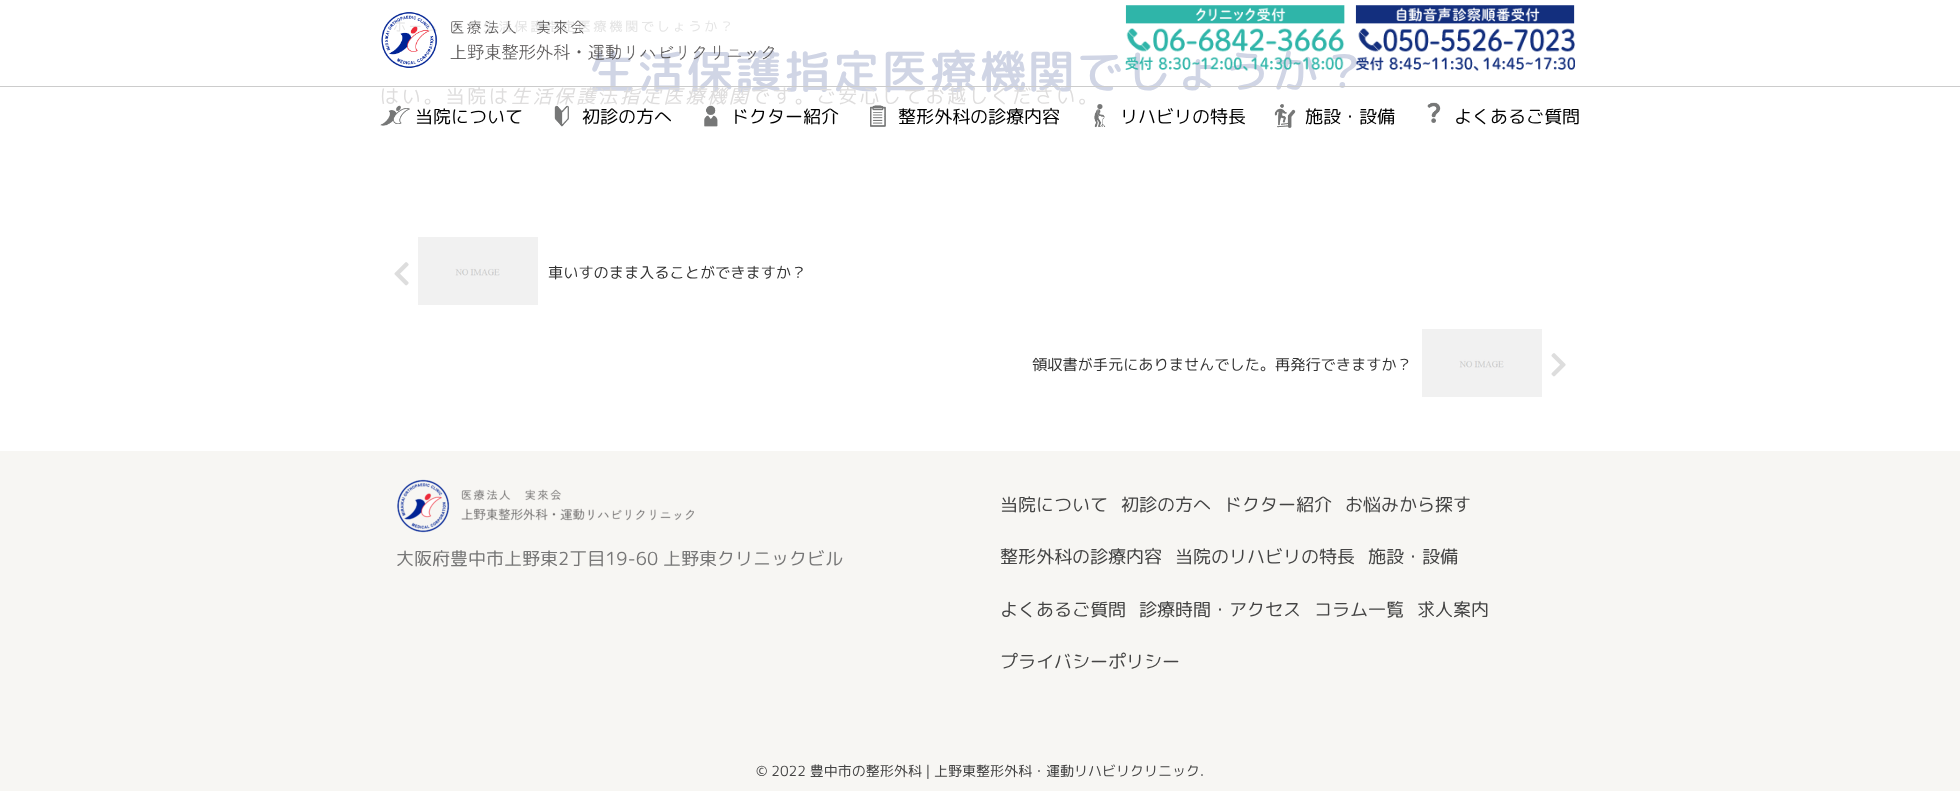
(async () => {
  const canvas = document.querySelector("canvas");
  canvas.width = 1960;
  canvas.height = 791;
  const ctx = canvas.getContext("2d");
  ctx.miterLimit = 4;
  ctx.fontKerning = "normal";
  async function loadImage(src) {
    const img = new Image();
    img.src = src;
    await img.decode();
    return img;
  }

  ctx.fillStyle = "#ffffff";
  ctx.fillRect(0, 0, 1960, 791);
  ctx.drawImage(await loadImage("img/1.png"), 454, 22, 6, 9);
  ctx.drawImage(await loadImage("img/5.png"), 380, 105, 30, 21);
  ctx.drawImage(await loadImage("img/6.png"), 554, 105, 15, 22);
  ctx.drawImage(await loadImage("img/7.png"), 704, 105, 14, 22);
  ctx.drawImage(await loadImage("img/8.png"), 870, 105, 16, 22);
  ctx.drawImage(await loadImage("img/9.png"), 1094, 104, 12, 24);
  ctx.drawImage(await loadImage("img/10.png"), 1274, 104, 22, 24);
  ctx.drawImage(await loadImage("img/11.png"), 1427, 102, 14, 21);
  ctx.drawImage(await loadImage("img/12.png"), 394, 262, 15, 24);
  ctx.drawImage(await loadImage("img/13.png"), 418, 237, 120, 68);
  ctx.drawImage(await loadImage("img/13.png"), 1422, 329, 120, 68);
  ctx.drawImage(await loadImage("img/14.png"), 1551, 353, 15, 24);
  ctx.fillStyle = "#f7f6f3";
  ctx.fillRect(0, 451, 1960, 340);
  ctx.drawImage(await loadImage("img/15.png"), 397, 479, 297, 54);
  ctx.letterSpacing = "2.8px";
  ctx.font = "13px 'M PLUS 1p'";
  ctx.fillStyle = "#e4e4e4";
  ctx.fillText("ホーム", 393, 31);
  ctx.fillText("生活保護指定医療機関でしょうか？", 483, 31);
  ctx.font = "500 46px 'Rounded Mplus 1c'";
  ctx.fillStyle = "#d0d5e5";
  ctx.fillText("生活保護指定医療機関でしょうか？", 589, 88);
  ctx.font = "19px 'M PLUS 1p'";
  ctx.fillStyle = "#dedddd";
  ctx.fillText("はい。当院は", 380, 103);
  ctx.font = "italic 19px 'M PLUS 1p'";
  ctx.fillText("生活保護", 511, 103);
  ctx.font = "19px 'M PLUS 1p'";
  ctx.fillText("法", 599, 103);
  ctx.font = "italic 19px 'M PLUS 1p'";
  ctx.fillText("指定医療機関", 620, 103);
  ctx.font = "19px 'M PLUS 1p'";
  ctx.fillText("です。ご安心してお越しください。", 751, 103);
  ctx.drawImage(await loadImage("img/2.png"), 381, 12, 393, 56);
  ctx.drawImage(await loadImage("img/3.png"), 1125, 5, 220, 66);
  ctx.drawImage(await loadImage("img/4.png"), 1355, 5, 220, 66);
  ctx.fillStyle = "#cccccc";
  ctx.fillRect(0, 86, 1960, 1);
  ctx.letterSpacing = "0px";
  ctx.font = "18px 'Rounded Mplus 1c'";
  ctx.fillStyle = "#000000";
  for (const [text, x, y] of [
    ["当院について", 415, 123],
    ["初診の方へ", 582, 123],
    ["ドクター紹介", 731, 123],
    ["整形外科の診療内容", 898, 123],
    ["リハビリの特長", 1120, 123],
    ["施設・設備", 1305, 123],
    ["よくあるご質問", 1454, 123],
  ]) {
    ctx.fillText(text, x, y);
  }
  ctx.font = "15.2px 'Rounded Mplus 1c'";
  ctx.fillStyle = "#333333";
  ctx.fillText("車いすのまま入ることができますか？", 548, 278);
  ctx.fillText("領収書が手元にありませんでした。再発行できますか？", 1032, 370);
  ctx.font = "18px 'Rounded Mplus 1c'";
  ctx.fillStyle = "#777777";
  ctx.fillText("大阪府豊中市上野東2丁目19-60 上野東クリニックビル", 396, 565);
  ctx.fillStyle = "#444444";
  for (const [text, x, y] of [
    ["当院について", 1000, 511],
    ["初診の方へ", 1121, 511],
    ["ドクター紹介", 1224, 511],
    ["お悩みから探す", 1345, 511],
    ["整形外科の診療内容", 1000, 563],
    ["当院のリハビリの特長", 1175, 563],
    ["施設・設備", 1368, 563],
    ["よくあるご質問", 1000, 616],
    ["診療時間・アクセス", 1139, 616],
    ["コラム一覧", 1314, 616],
    ["求人案内", 1417, 616],
    ["プライバシーポリシー", 1000, 668],
  ]) {
    ctx.fillText(text, x, y);
  }
  ctx.font = "14px 'Rounded Mplus 1c'";
  ctx.fillText("© 2022 豊中市の整形外科 | 上野東整形外科・運動リハビリクリニック.", 756, 776);
})();
